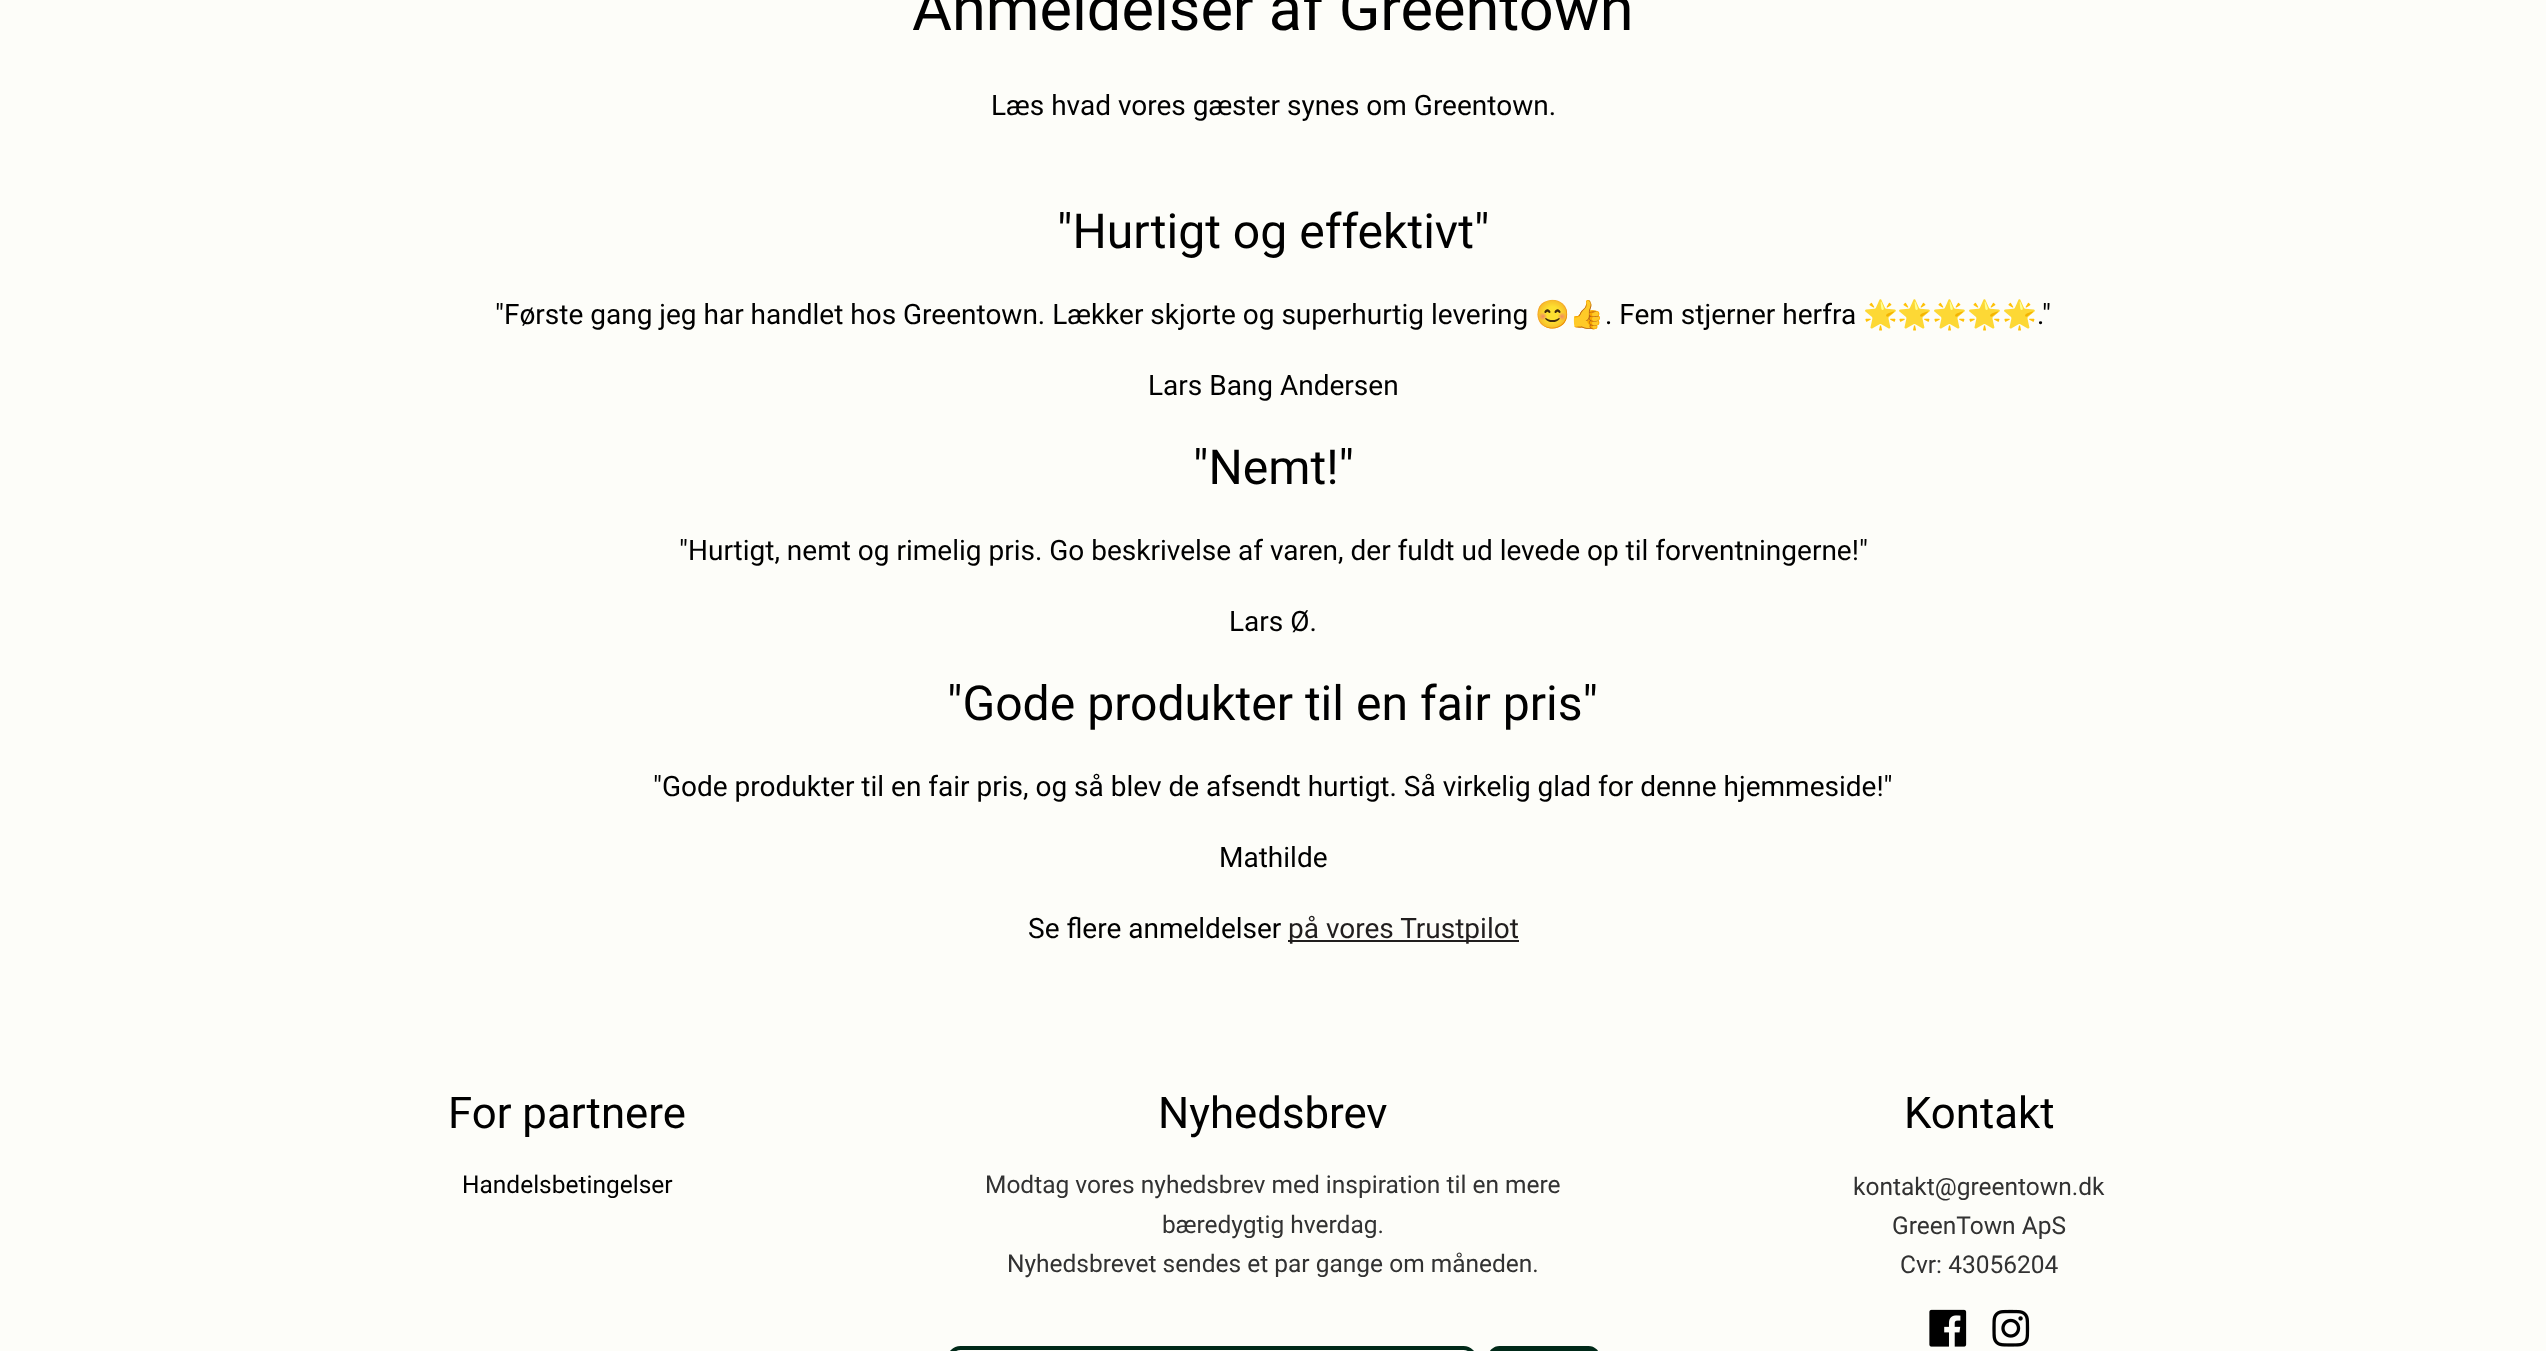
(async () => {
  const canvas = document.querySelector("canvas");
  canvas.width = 2546;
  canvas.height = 1351;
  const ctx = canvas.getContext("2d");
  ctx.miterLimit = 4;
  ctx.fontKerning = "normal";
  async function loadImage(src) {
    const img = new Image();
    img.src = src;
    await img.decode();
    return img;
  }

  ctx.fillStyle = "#fdfdf9";
  ctx.fillRect(0, 0, 2546, 1351);
  ctx.fillStyle = "#211e1e";
  ctx.fillRect(1288, 940, 231, 2);
  ctx.beginPath();
  ctx.roundRect(949, 1348, 526, 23, 16);
  ctx.strokeStyle = "#002918";
  ctx.lineWidth = 4;
  ctx.stroke();
  ctx.fillStyle = "#002918";
  ctx.beginPath();
  ctx.roundRect(1488, 1346, 112, 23, 18);
  ctx.fill();
  ctx.drawImage(await loadImage("img/1.png"), 1929, 1309, 38, 38);
  ctx.drawImage(await loadImage("img/2.png"), 1992, 1309, 38, 38);
  ctx.font = "61.25px Roboto";
  ctx.fillStyle = "#000000";
  ctx.fillText("Anmeldelser af Greentown", 912, 30);
  ctx.font = "28px Roboto";
  ctx.fillText("Læs hvad vores gæster synes om Greentown.", 991, 115);
  ctx.font = "48.1px Roboto";
  ctx.fillText("\"Hurtigt og effektivt\"", 1057, 248);
  ctx.font = "28px Roboto";
  ctx.fillText("\"Første gang jeg har handlet hos Greentown. Lækker skjorte og superhurtig levering", 495, 324);
  ctx.font = "28px Noto Color Emoji";
  ctx.fillText("😊👍", 1535, 324);
  ctx.font = "28px Roboto";
  ctx.fillText(". Fem stjerner herfra", 1605, 324);
  ctx.font = "28px Noto Color Emoji";
  ctx.fillText("🌟🌟🌟🌟🌟", 1863, 324);
  ctx.font = "28px Roboto";
  ctx.fillText(".\"", 2037, 324);
  ctx.fillText("Lars Bang Andersen", 1148, 395);
  ctx.font = "48.1px Roboto";
  ctx.fillText("\"Nemt!\"", 1193, 484);
  ctx.font = "28px Roboto";
  ctx.fillText("\"Hurtigt, nemt og rimelig pris. Go beskrivelse af varen, der fuldt ud levede op til forventningerne!\"", 679, 560);
  ctx.fillText("Lars Ø.", 1229, 631);
  ctx.font = "48.1px Roboto";
  ctx.fillText("\"Gode produkter til en fair pris\"", 947, 720);
  ctx.font = "28px Roboto";
  for (const [text, x, y] of [
    ["\"Gode produkter til en fair pris, og så blev de afsendt hurtigt. Så virkelig glad for denne hjemmeside!\"", 653, 796],
    ["Mathilde", 1219, 867],
    ["Se flere anmeldelser", 1028, 938],
  ]) {
    ctx.fillText(text, x, y);
  }
  ctx.fillStyle = "#211e1e";
  ctx.fillText("på vores Trustpilot", 1288, 938);
  ctx.font = "43.75px Roboto";
  ctx.fillStyle = "#000000";
  ctx.fillText("For partnere", 448, 1128);
  ctx.font = "24.5px Roboto";
  ctx.fillText("Handelsbetingelser", 462, 1193);
  ctx.font = "43.75px Roboto";
  ctx.fillText("Nyhedsbrev", 1158, 1128);
  ctx.font = "24.5px Roboto";
  ctx.fillStyle = "#323232";
  for (const [text, x, y] of [
    ["Modtag vores nyhedsbrev med inspiration til en mere", 985, 1193],
    ["bæredygtig hverdag.", 1162, 1233],
    ["Nyhedsbrevet sendes et par gange om måneden.", 1007, 1272],
  ]) {
    ctx.fillText(text, x, y);
  }
  ctx.font = "43.75px Roboto";
  ctx.fillStyle = "#000000";
  ctx.fillText("Kontakt", 1904, 1128);
  ctx.font = "24.5px Roboto";
  ctx.fillStyle = "#323232";
  for (const [text, x, y] of [
    ["kontakt@greentown.dk", 1853, 1195],
    ["GreenTown ApS", 1892, 1234],
    ["Cvr: 43056204", 1900, 1273],
  ]) {
    ctx.fillText(text, x, y);
  }
})();
